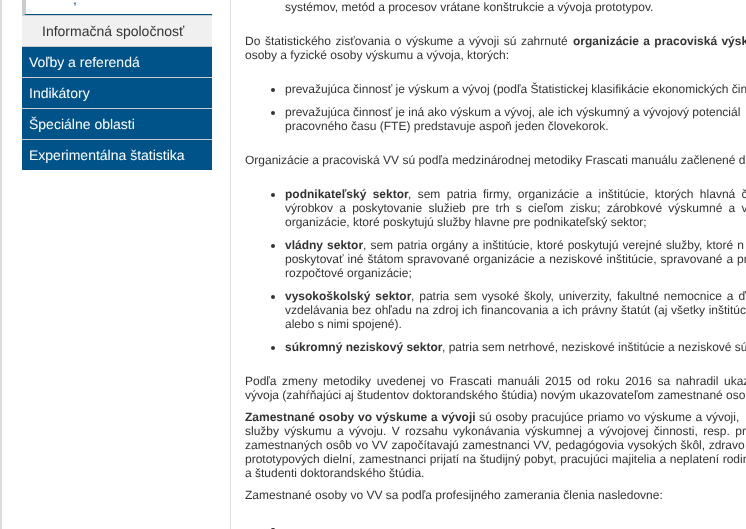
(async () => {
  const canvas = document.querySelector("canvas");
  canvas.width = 746;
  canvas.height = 529;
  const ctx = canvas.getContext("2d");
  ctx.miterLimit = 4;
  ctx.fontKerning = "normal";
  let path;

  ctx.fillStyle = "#ffffff";
  ctx.fillRect(0, 0, 746, 529);
  ctx.fillStyle = "#dadbdc";
  ctx.fillRect(0, 0, 2, 529);
  ctx.fillStyle = "#005388";
  path = new Path2D("M212 15H22L26 14H212Z");
  ctx.fill(path);
  ctx.fillStyle = "#cccccc";
  path = new Path2D("M22 15V-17L26-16V14Z");
  ctx.fill(path);
  for (const [x, y, w, h, color] of [
    [22, 15, 190, 1, "#cccccc"],
    [22, 16, 190, 30, "#f0f0f0"],
    [22, 46, 190, 1, "#cccccc"],
    [22, 47, 190, 30, "#005388"],
    [22, 77, 190, 1, "#cccccc"],
    [22, 78, 190, 30, "#005388"],
    [22, 108, 190, 1, "#cccccc"],
    [22, 109, 190, 30, "#005388"],
    [22, 139, 190, 1, "#cccccc"],
    [22, 140, 190, 30, "#005388"],
  ]) {
    ctx.fillStyle = color;
    ctx.fillRect(x, y, w, h);
  }
  ctx.strokeStyle = "#dfdfdf";
  ctx.strokeRect(230.5, -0.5, 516, 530);
  ctx.fillStyle = "#333333";
  ctx.beginPath();
  ctx.arc(273, 90, 2, 0, Math.PI * 2);
  ctx.fill();
  ctx.beginPath();
  ctx.arc(273, 113, 2, 0, Math.PI * 2);
  ctx.fill();
  ctx.beginPath();
  ctx.arc(273, 195, 2, 0, Math.PI * 2);
  ctx.fill();
  ctx.beginPath();
  ctx.arc(273, 246, 2, 0, Math.PI * 2);
  ctx.fill();
  ctx.beginPath();
  ctx.arc(273, 297, 2, 0, Math.PI * 2);
  ctx.fill();
  ctx.beginPath();
  ctx.arc(273, 348, 2, 0, Math.PI * 2);
  ctx.fill();
  ctx.beginPath();
  ctx.roundRect(271, 528, 4, 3, 2);
  ctx.fill();
  ctx.font = "14px Liberation Sans";
  ctx.fillStyle = "#064685";
  ctx.fillText(",", 73, 4);
  ctx.fillStyle = "#333333";
  ctx.fillText("Informačná spoločnosť", 42, 36);
  ctx.fillStyle = "#ffffff";
  for (const [text, x, y] of [
    ["Voľby a referendá", 29, 67],
    ["Indikátory", 29, 98],
    ["Špeciálne oblasti", 29, 129],
    ["Experimentálna štatistika", 29, 160],
  ]) {
    ctx.fillText(text, x, y);
  }
  ctx.font = "12px Liberation Sans";
  ctx.fillStyle = "#333333";
  ctx.fillText("systémov, metód a procesov vrátane konštrukcie a vývoja prototypov.", 285, 11);
  ctx.wordSpacing = "1.25px";
  ctx.fillText("Do štatistického zisťovania o výskume a vývoji sú zahrnuté", 245, 45);
  ctx.wordSpacing = "1px";
  ctx.font = "bold 12px Liberation Sans";
  ctx.fillText("organizácie a pracoviská výsk", 573, 45);
  ctx.wordSpacing = "0px";
  ctx.font = "12px Liberation Sans";
  for (const [text, x, y] of [
    ["osoby a fyzické osoby výskumu a vývoja, ktorých:", 245, 59],
    ["prevažujúca činnosť je výskum a vývoj (podľa Štatistickej klasifikácie ekonomických čin", 285, 93],
    ["prevažujúca činnosť je iná ako výskum a vývoj, ale ich výskumný a vývojový potenciál", 285, 116],
    ["pracovného času (FTE) predstavuje aspoň jeden človekorok.", 285, 130],
    ["Organizácie a pracoviská VV sú podľa medzinárodnej metodiky Frascati manuálu začlenené d", 245, 164],
  ]) {
    ctx.fillText(text, x, y);
  }
  ctx.wordSpacing = "3px";
  ctx.font = "bold 12px Liberation Sans";
  ctx.fillText("podnikateľský sektor", 285, 198);
  ctx.font = "12px Liberation Sans";
  ctx.fillText(", sem patria firmy, organizácie a inštitúcie, ktorých hlavná č", 408, 198);
  ctx.wordSpacing = "2.9px";
  ctx.fillText("výrobkov a poskytovanie služieb pre trh s cieľom zisku; zárobkové výskumné a v", 285, 212);
  ctx.wordSpacing = "0px";
  ctx.fillText("organizácie, ktoré poskytujú služby hlavne pre podnikateľský sektor;", 285, 226);
  ctx.wordSpacing = "0.75px";
  ctx.font = "bold 12px Liberation Sans";
  ctx.fillText("vládny sektor", 285, 249);
  ctx.font = "12px Liberation Sans";
  ctx.fillText(", sem patria orgány a inštitúcie, ktoré poskytujú verejné služby, ktoré n", 363, 249);
  ctx.wordSpacing = "0.6px";
  ctx.fillText("poskytovať iné štátom spravované organizácie a neziskové inštitúcie, spravované a pr", 285, 263);
  ctx.wordSpacing = "0px";
  ctx.fillText("rozpočtové organizácie;", 285, 277);
  ctx.wordSpacing = "1.6px";
  ctx.font = "bold 12px Liberation Sans";
  ctx.fillText("vysokoškolský sektor", 285, 300);
  ctx.font = "12px Liberation Sans";
  ctx.fillText(", patria sem vysoké školy, univerzity, fakultné nemocnice a ď", 411, 300);
  ctx.wordSpacing = "0.3px";
  ctx.fillText("vzdelávania bez ohľadu na zdroj ich financovania a ich právny štatút (aj všetky inštitúc", 285, 314);
  ctx.wordSpacing = "0px";
  ctx.fillText("alebo s nimi spojené).", 285, 328);
  ctx.font = "bold 12px Liberation Sans";
  ctx.fillText("súkromný neziskový sektor", 285, 351);
  ctx.font = "12px Liberation Sans";
  ctx.fillText(", patria sem netrhové, neziskové inštitúcie a neziskové sú", 442, 351);
  ctx.wordSpacing = "2.25px";
  ctx.fillText("Podľa zmeny metodiky uvedenej vo Frascati manuáli 2015 od roku 2016 sa nahradil ukaz", 245, 385);
  ctx.wordSpacing = "0px";
  ctx.fillText("vývoja (zahŕňajúci aj študentov doktorandského štúdia) novým ukazovateľom zamestnané oso", 245, 399);
  ctx.wordSpacing = "0.5px";
  ctx.font = "bold 12px Liberation Sans";
  ctx.fillText("Zamestnané osoby vo výskume a vývoji", 245, 421);
  ctx.font = "12px Liberation Sans";
  ctx.fillText("sú osoby pracujúce priamo vo výskume a vývoji,", 479, 421);
  ctx.wordSpacing = "2px";
  ctx.fillText("služby výskumu a vývoju. V rozsahu vykonávania výskumnej a vývojovej činnosti, resp. pr", 245, 435);
  ctx.wordSpacing = "0.25px";
  ctx.fillText("zamestnaných osôb vo VV započítavajú zamestnanci VV, pedagógovia vysokých škôl, zdravo", 245, 449);
  ctx.fillText("prototypových dielní, zamestnanci prijatí na študijný pobyt, pracujúci majitelia a neplatení rodin", 245, 463);
  ctx.wordSpacing = "0px";
  ctx.fillText("a študenti doktorandského štúdia.", 245, 477);
  ctx.fillText("Zamestnané osoby vo VV sa podľa profesijného zamerania členia nasledovne:", 245, 499);
})();
